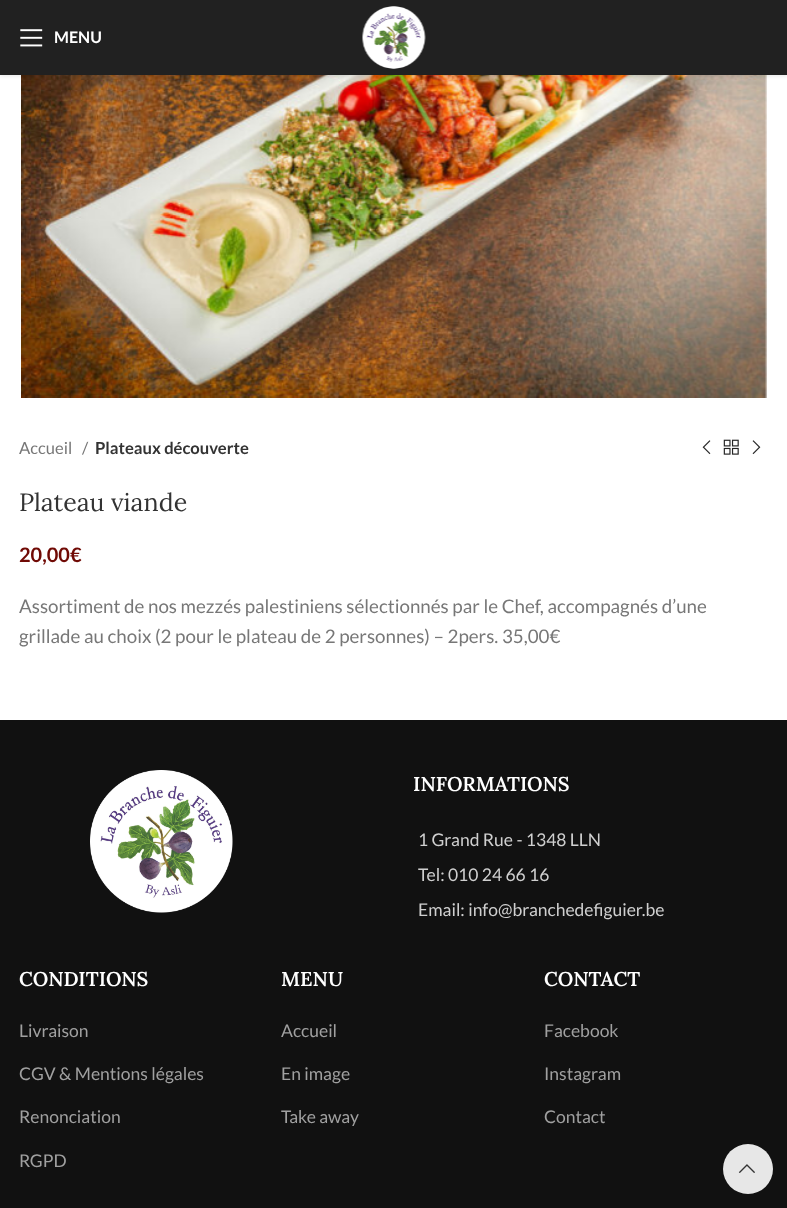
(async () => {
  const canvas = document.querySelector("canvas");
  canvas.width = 787;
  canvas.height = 1208;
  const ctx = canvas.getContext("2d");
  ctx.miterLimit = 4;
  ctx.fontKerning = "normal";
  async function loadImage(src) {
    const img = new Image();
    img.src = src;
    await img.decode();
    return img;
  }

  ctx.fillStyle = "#ffffff";
  ctx.fillRect(0, 0, 787, 1208);
  ctx.drawImage(await loadImage("img/3.png"), 21, 75, 746, 323);
  ctx.fillStyle = "rgba(0, 0, 0, 0.1)";
  ctx.filter = "blur(2px)";
  ctx.beginPath();
  ctx.rect(0, 1, 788, 75);
  ctx.fill();
  ctx.filter = "none";
  ctx.fillStyle = "#212121";
  ctx.fillRect(0, 0, 787, 75);
  ctx.drawImage(await loadImage("img/1.png"), 20, 29, 23, 18);
  ctx.drawImage(await loadImage("img/2.png"), 362, 6, 64, 63);
  ctx.drawImage(await loadImage("img/4.png"), 702, 440, 9, 15);
  ctx.drawImage(await loadImage("img/5.png"), 723, 439, 16, 16);
  ctx.drawImage(await loadImage("img/6.png"), 752, 440, 9, 15);
  ctx.fillStyle = "#111111";
  ctx.fillRect(0, 720, 787, 488);
  ctx.drawImage(await loadImage("img/7.png"), 90, 770, 143, 143);
  ctx.fillStyle = "#e7e7e7";
  ctx.beginPath();
  ctx.arc(748, 1169, 25, 0, Math.PI * 2);
  ctx.fill();
  ctx.drawImage(await loadImage("img/8.png"), 738, 1164, 17, 9);
  ctx.font = "bold 16px Lato";
  ctx.fillStyle = "#ffffff";
  ctx.fillText("MENU", 54, 43);
  ctx.font = "16.6px Lato";
  ctx.fillStyle = "#777777";
  ctx.fillText("Accueil", 19, 454);
  ctx.fillText("/", 82, 454);
  ctx.font = "bold 16.6px Lato";
  ctx.fillStyle = "#333333";
  ctx.fillText("Plateaux découverte", 95, 454);
  ctx.font = "25px Lora";
  ctx.fillText("Plateau viande", 19, 511);
  ctx.font = "bold 20px Lato";
  ctx.fillStyle = "#700a05";
  ctx.fillText("20,00€", 19, 562);
  ctx.font = "18.75px Lato";
  ctx.fillStyle = "#777777";
  ctx.fillText("Assortiment de nos mezzés palestiniens sélectionnés par le Chef, accompagnés d’une", 19, 613);
  ctx.fillText("grillade au choix (2 pour le plateau de 2 personnes) – 2pers. 35,00€", 19, 643);
  ctx.font = "600 20px Lora";
  ctx.fillStyle = "#ffffff";
  ctx.fillText("INFORMATIONS", 413, 791);
  ctx.font = "17.5px Lato";
  ctx.fillStyle = "#cfcfcf";
  for (const [text, x, y] of [
    ["1 Grand Rue - 1348 LLN", 418, 846],
    ["Tel: 010 24 66 16", 418, 881],
    ["Email: info@branchedefiguier.be", 418, 916],
  ]) {
    ctx.fillText(text, x, y);
  }
  ctx.font = "600 20px Lora";
  ctx.fillStyle = "#ffffff";
  ctx.fillText("CONDITIONS", 19, 986);
  ctx.font = "17.5px Lato";
  ctx.fillStyle = "#a0a0a0";
  for (const [text, x, y] of [
    ["Livraison", 19, 1037],
    ["CGV & Mentions légales", 19, 1080],
    ["Renonciation", 19, 1123],
    ["RGPD", 19, 1167],
  ]) {
    ctx.fillText(text, x, y);
  }
  ctx.font = "600 20px Lora";
  ctx.fillStyle = "#ffffff";
  ctx.fillText("MENU", 281, 986);
  ctx.font = "17.5px Lato";
  ctx.fillStyle = "#a0a0a0";
  for (const [text, x, y] of [
    ["Accueil", 281, 1037],
    ["En image", 281, 1080],
    ["Take away", 281, 1123],
  ]) {
    ctx.fillText(text, x, y);
  }
  ctx.font = "600 20px Lora";
  ctx.fillStyle = "#ffffff";
  ctx.fillText("CONTACT", 544, 986);
  ctx.font = "17.5px Lato";
  ctx.fillStyle = "#a0a0a0";
  for (const [text, x, y] of [
    ["Facebook", 544, 1037],
    ["Instagram", 544, 1080],
    ["Contact", 544, 1123],
  ]) {
    ctx.fillText(text, x, y);
  }
})();
